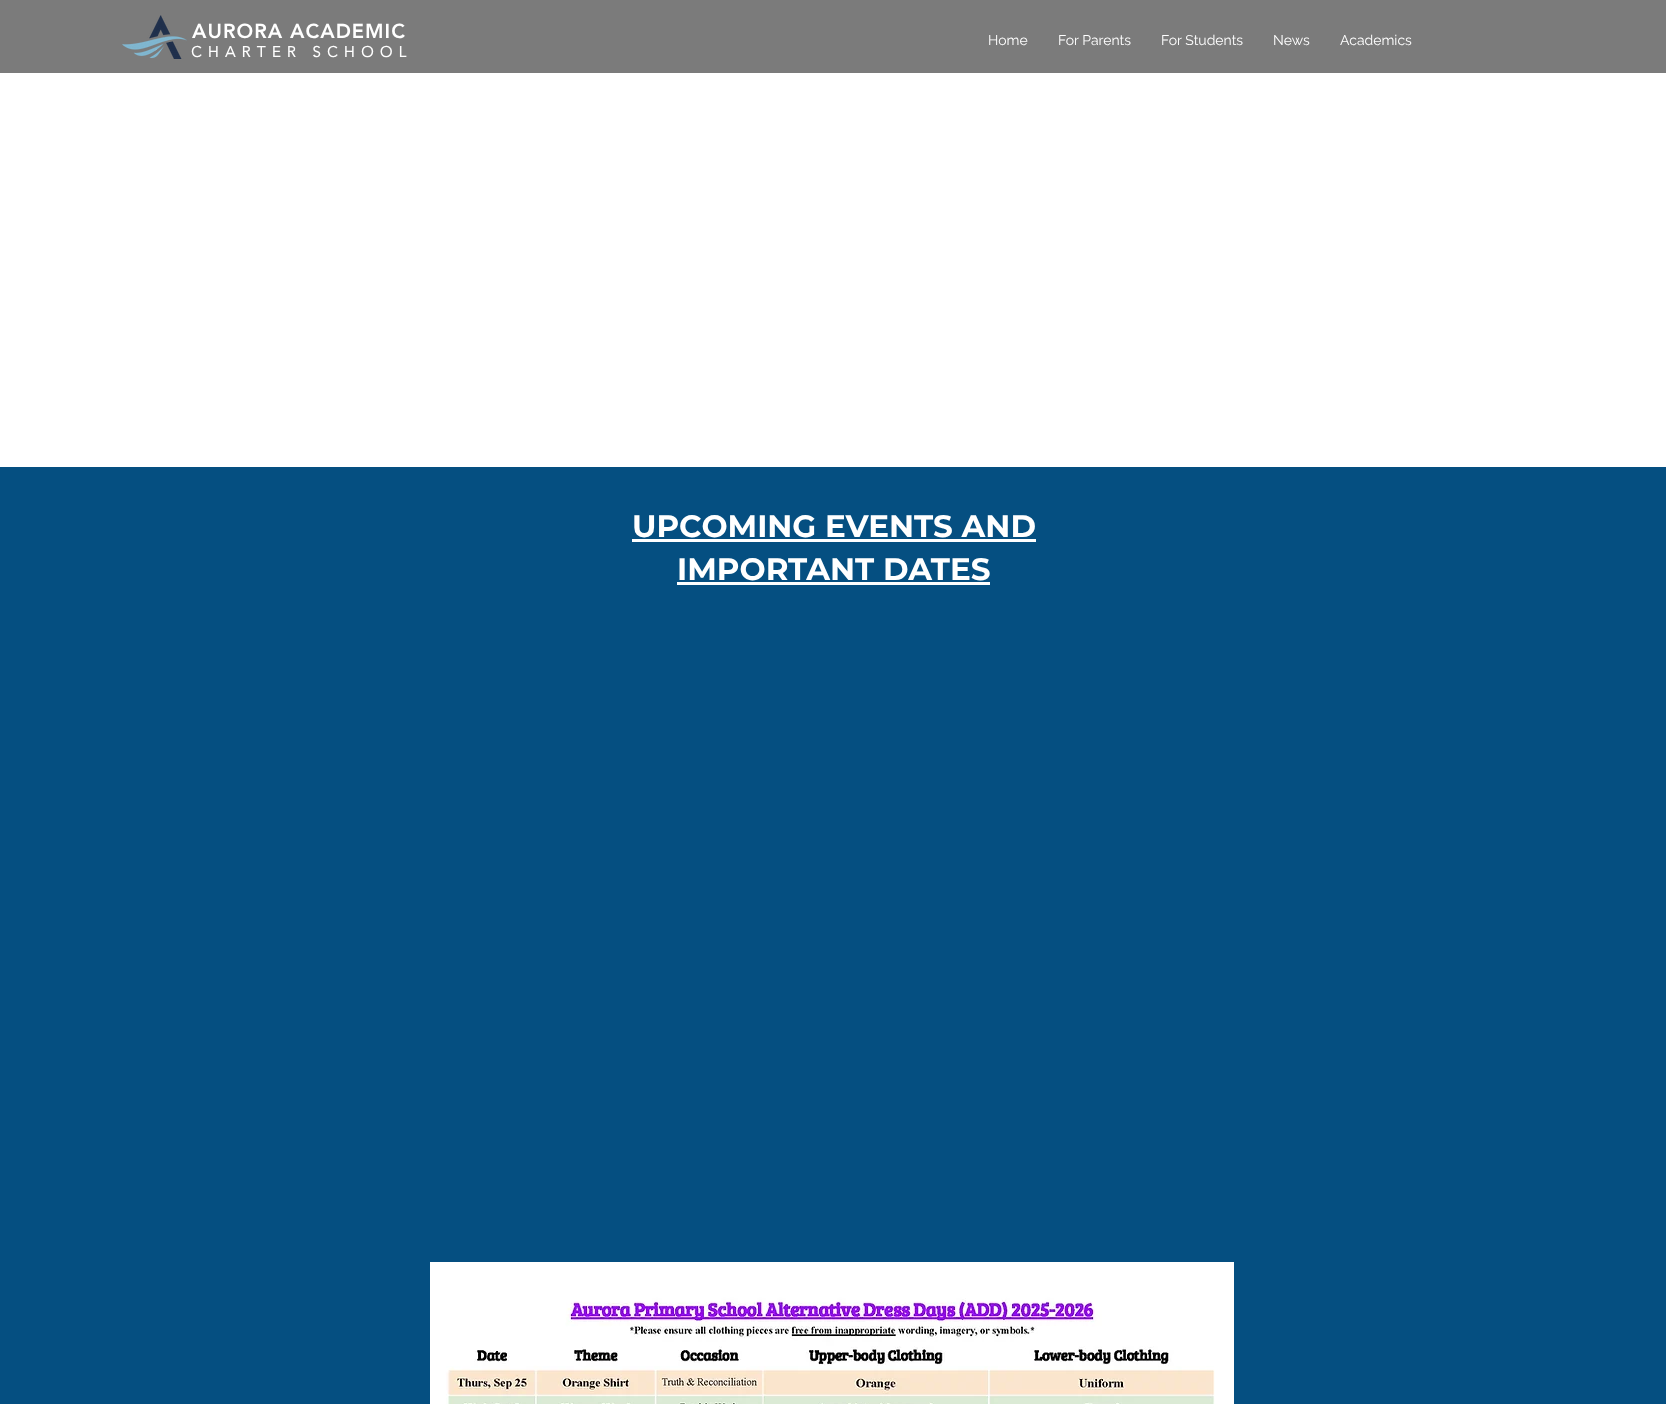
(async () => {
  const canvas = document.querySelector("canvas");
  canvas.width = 1666;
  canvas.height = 1404;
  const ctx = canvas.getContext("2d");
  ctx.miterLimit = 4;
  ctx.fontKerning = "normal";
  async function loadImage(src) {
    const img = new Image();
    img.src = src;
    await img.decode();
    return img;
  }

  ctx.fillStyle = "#ffffff";
  ctx.fillRect(0, 0, 1666, 1404);
  ctx.fillStyle = "#7b7b7b";
  ctx.fillRect(0, 0, 1666, 73);
  ctx.drawImage(await loadImage("img/1.png"), 122, 15, 65, 44);
  for (const [x, y, w, h, color] of [
    [0, 467, 1666, 937, "#054f81"],
    [632, 539, 404, 3, "#ffffff"],
    [677, 582, 313, 3, "#ffffff"],
  ]) {
    ctx.fillStyle = color;
    ctx.fillRect(x, y, w, h);
  }
  ctx.drawImage(await loadImage("img/2.png"), 430, 1262, 804, 142);
  ctx.letterSpacing = "1px";
  ctx.font = "900 20px 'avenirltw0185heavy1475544'";
  ctx.fillText("AURORA ACADEMIC", 192, 38);
  ctx.letterSpacing = "1.2px";
  ctx.font = "bold 15px 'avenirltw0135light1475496'";
  ctx.fillText("C H A R T E R   S C H O O L", 191, 57);
  ctx.letterSpacing = "0px";
  ctx.font = "14px Raleway";
  for (const [text, x, y] of [
    ["Home", 988, 45],
    ["For Parents", 1058, 45],
    ["For Students", 1161, 45],
    ["News", 1273, 45],
    ["Academics", 1340, 45],
  ]) {
    ctx.fillText(text, x, y);
  }
  ctx.font = "bold 31px Montserrat";
  ctx.fillText("UPCOMING EVENTS AND", 632, 537);
  ctx.fillText("IMPORTANT DATES", 677, 580);
})();
